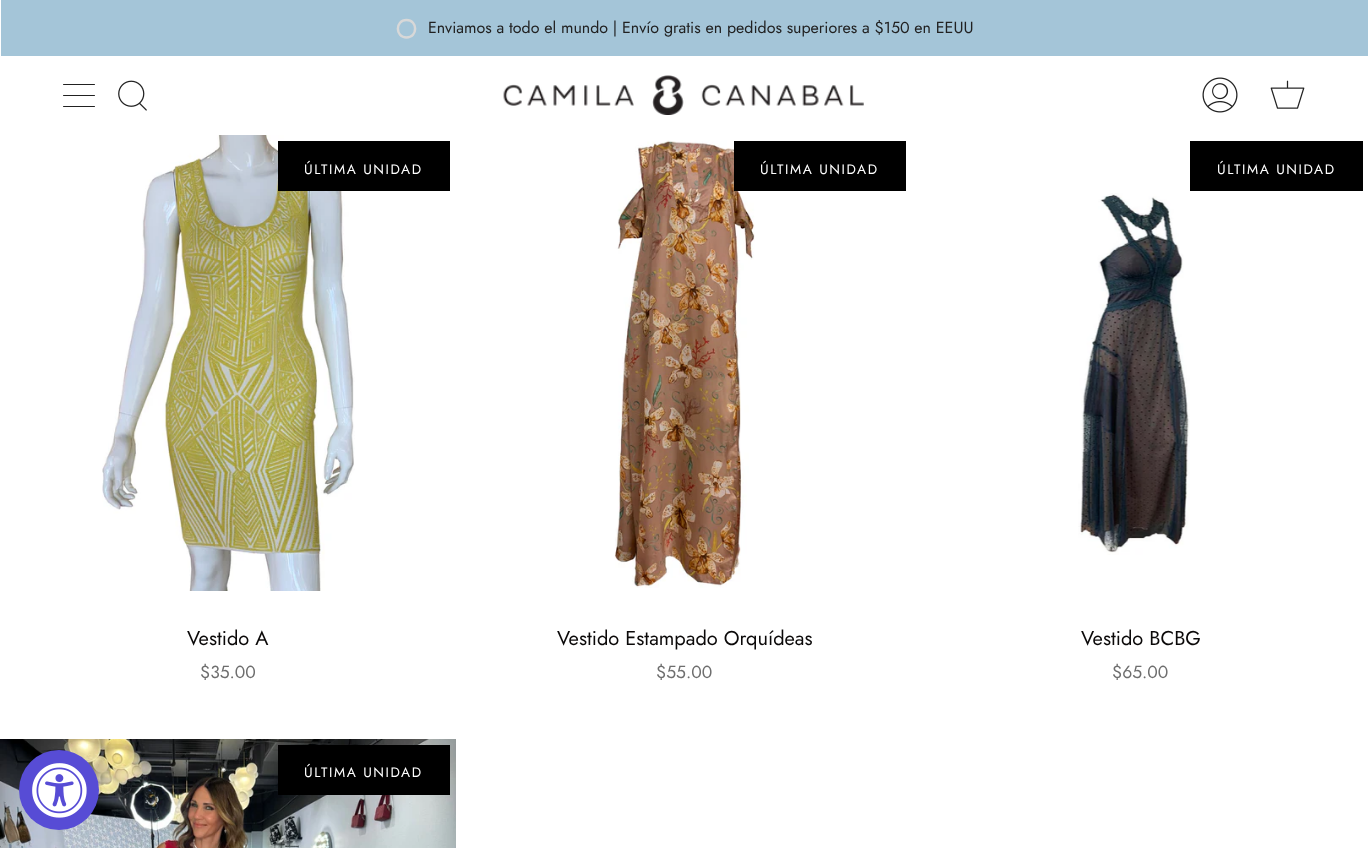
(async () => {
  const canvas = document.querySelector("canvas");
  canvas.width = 1368;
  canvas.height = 848;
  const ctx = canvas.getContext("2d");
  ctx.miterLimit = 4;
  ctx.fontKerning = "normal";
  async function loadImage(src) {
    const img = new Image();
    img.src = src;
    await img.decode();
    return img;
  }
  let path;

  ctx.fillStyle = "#ffffff";
  ctx.fillRect(0, 0, 1368, 848);
  ctx.fillStyle = "#a4c5d8";
  ctx.fillRect(1, 0, 1367, 56);
  path = new Path2D("M406.5 20C395 20 395 37.5 406.5 37.5C418 37.5 418 20 406.5 20Z");
  ctx.strokeStyle = "#d8d8d8";
  ctx.lineWidth = 2.5;
  ctx.stroke(path);
  ctx.fillStyle = "#212121";
  ctx.beginPath();
  ctx.roundRect(63, 84, 32, 1, 0.5);
  ctx.fill();
  ctx.beginPath();
  ctx.roundRect(63, 95, 32, 1, 0.5);
  ctx.fill();
  ctx.beginPath();
  ctx.roundRect(63, 106, 32, 1, 0.5);
  ctx.fill();
  ctx.drawImage(await loadImage("img/1.png"), 118, 80, 29, 31);
  ctx.drawImage(await loadImage("img/2.png"), 503, 75, 361, 40);
  ctx.drawImage(await loadImage("img/3.png"), 1202, 77, 36, 36);
  ctx.drawImage(await loadImage("img/4.png"), 1270, 80, 35, 29);
  ctx.drawImage(await loadImage("img/5.png"), 102, 135, 253, 456);
  ctx.fillStyle = "#000000";
  ctx.fillRect(278, 141, 172, 50);
  ctx.drawImage(await loadImage("img/6.png"), 614, 140, 141, 448);
  ctx.fillRect(734, 141, 172, 50);
  ctx.fillRect(1190, 141, 173, 50);
  ctx.drawImage(await loadImage("img/7.png"), 1078, 193, 112, 362);
  ctx.drawImage(await loadImage("img/8.png"), 0, 739, 456, 109);
  ctx.fillRect(278, 745, 172, 50);
  ctx.fillStyle = "#574cd5";
  ctx.beginPath();
  ctx.arc(59, 790, 40, 0, Math.PI * 2);
  ctx.fill();
  ctx.drawImage(await loadImage("img/9.png"), 32, 763, 55, 55);
  ctx.font = "16px Jost";
  ctx.fillStyle = "#212121";
  ctx.fillText("Enviamos a todo el mundo | Envío gratis en pedidos superiores a $150 en EEUU", 428, 33);
  ctx.letterSpacing = "1.6px";
  ctx.font = "13.75px Jost";
  ctx.fillStyle = "#ffffff";
  ctx.fillText("ÚLTIMA UNIDAD", 304, 174);
  ctx.letterSpacing = "0px";
  ctx.font = "20px Jost";
  ctx.fillStyle = "#0b0909";
  ctx.fillText("Vestido A", 187, 645);
  ctx.font = "17.5px Jost";
  ctx.fillStyle = "#6e6e6e";
  ctx.fillText("$35.00", 200, 678);
  ctx.letterSpacing = "1.6px";
  ctx.font = "13.75px Jost";
  ctx.fillStyle = "#ffffff";
  ctx.fillText("ÚLTIMA UNIDAD", 760, 174);
  ctx.letterSpacing = "0px";
  ctx.font = "20px Jost";
  ctx.fillStyle = "#0b0909";
  ctx.fillText("Vestido Estampado Orquídeas", 557, 645);
  ctx.font = "17.5px Jost";
  ctx.fillStyle = "#6e6e6e";
  ctx.fillText("$55.00", 656, 678);
  ctx.letterSpacing = "1.6px";
  ctx.font = "13.75px Jost";
  ctx.fillStyle = "#ffffff";
  ctx.fillText("ÚLTIMA UNIDAD", 1217, 174);
  ctx.letterSpacing = "0px";
  ctx.font = "20px Jost";
  ctx.fillStyle = "#0b0909";
  ctx.fillText("Vestido BCBG", 1081, 645);
  ctx.font = "17.5px Jost";
  ctx.fillStyle = "#6e6e6e";
  ctx.fillText("$65.00", 1112, 678);
  ctx.letterSpacing = "1.6px";
  ctx.font = "13.75px Jost";
  ctx.fillStyle = "#ffffff";
  ctx.fillText("ÚLTIMA UNIDAD", 304, 777);
})();
